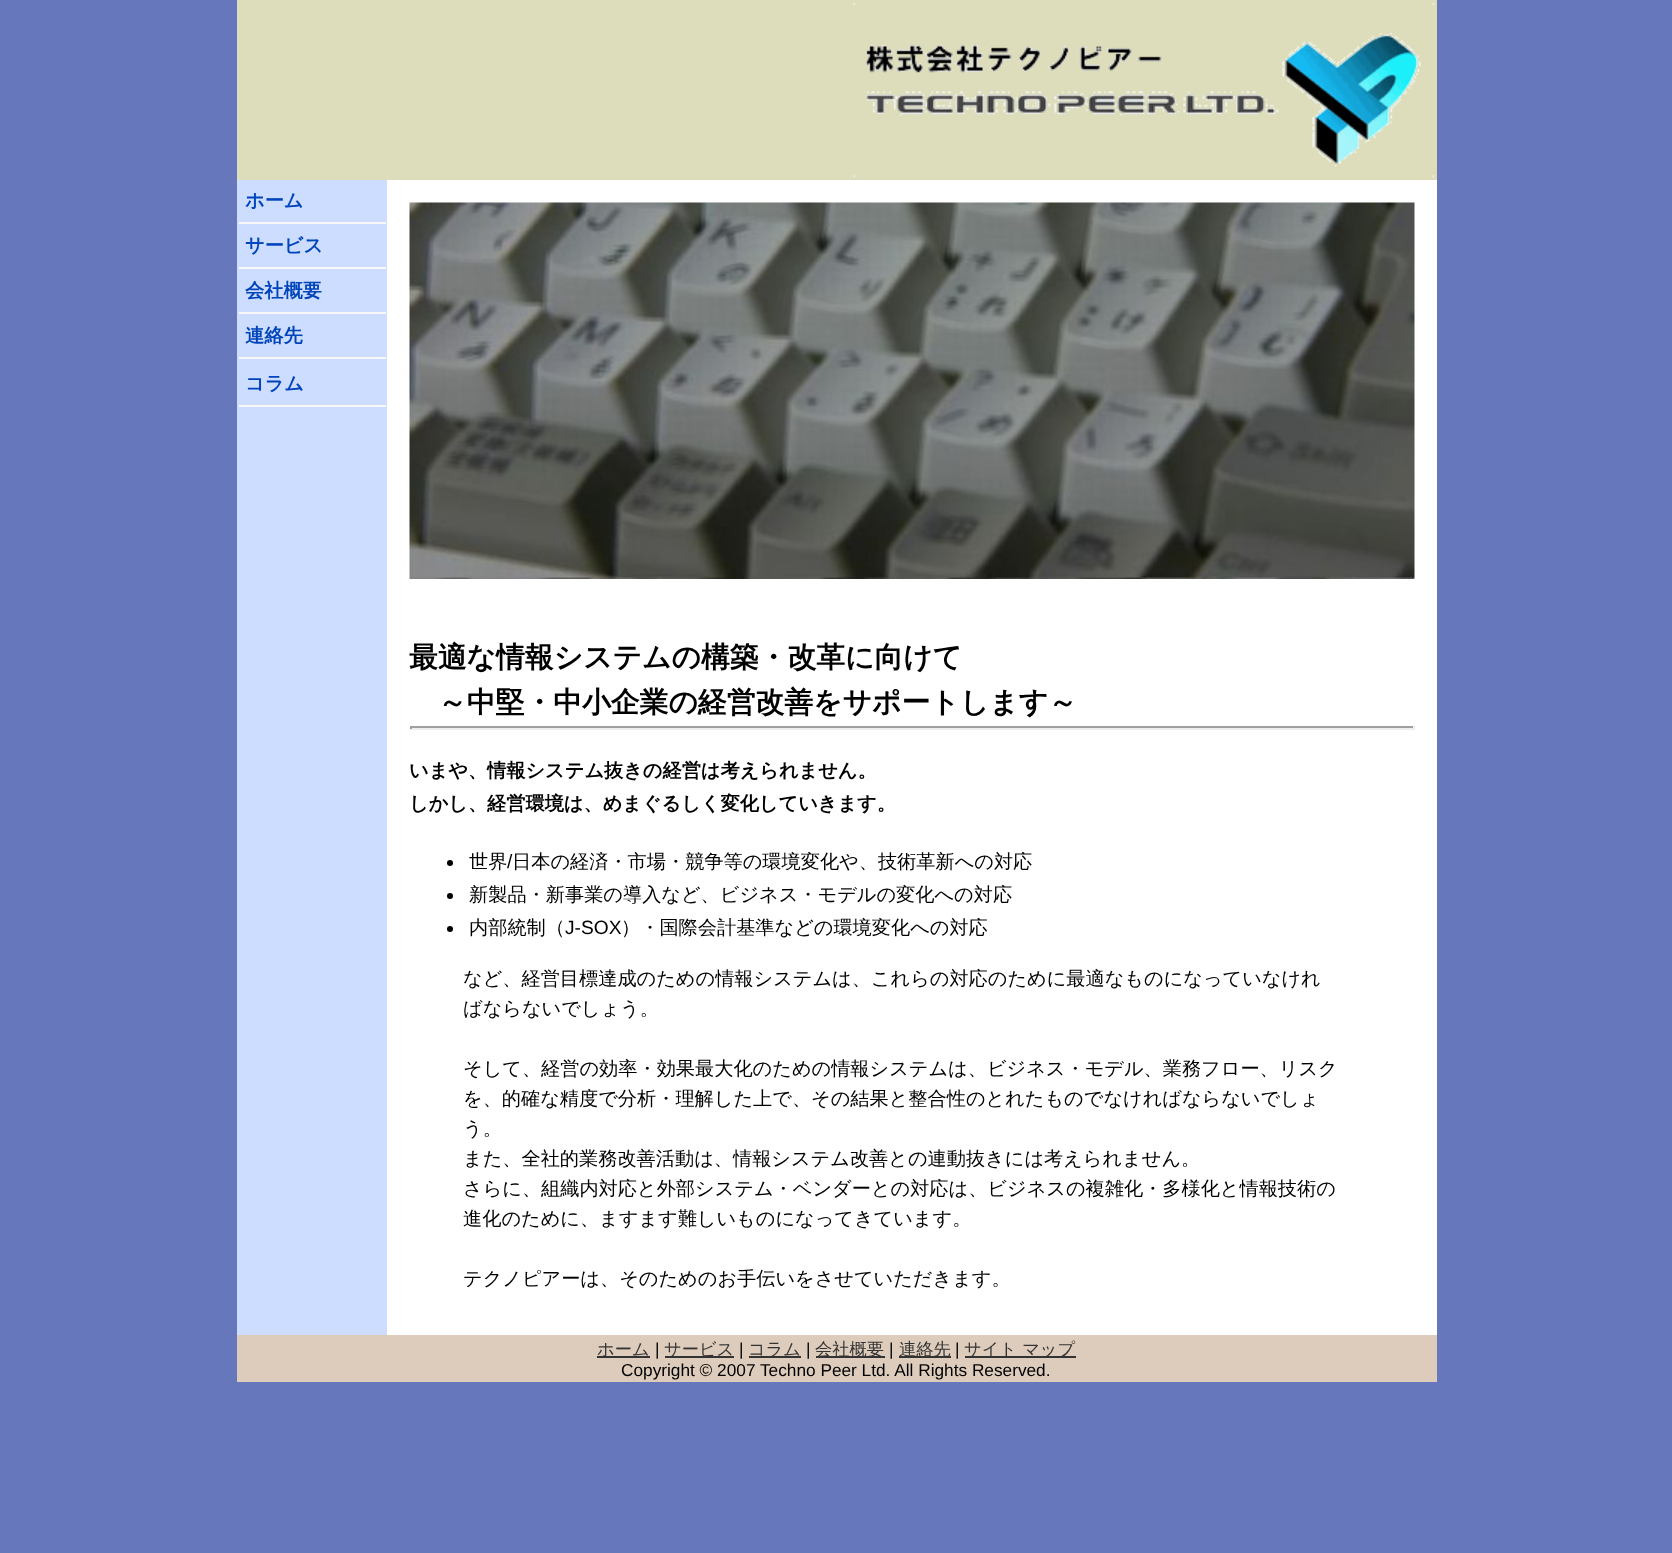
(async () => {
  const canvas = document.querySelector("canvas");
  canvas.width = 1672;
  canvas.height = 1553;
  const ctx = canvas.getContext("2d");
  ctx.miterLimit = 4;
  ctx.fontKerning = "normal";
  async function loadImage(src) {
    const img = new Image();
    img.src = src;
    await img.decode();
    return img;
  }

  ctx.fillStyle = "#6677bb";
  ctx.fillRect(0, 0, 1672, 1553);
  ctx.fillStyle = "#ccddff";
  ctx.fillRect(237, 180, 150, 1155);
  ctx.fillStyle = "#ddddbb";
  ctx.fillRect(237, 0, 1200, 180);
  ctx.drawImage(await loadImage("img/1.png"), 853, 2, 582, 176);
  for (const [x, y, w, h, color] of [
    [239, 222, 147, 2, "#f9f9f9"],
    [239, 267, 147, 2, "#f9f9f9"],
    [239, 312, 147, 2, "#f9f9f9"],
    [239, 357, 147, 2, "#f9f9f9"],
    [239, 405, 147, 2, "#f9f9f9"],
    [387, 180, 1050, 1155, "#ffffff"],
  ]) {
    ctx.fillStyle = color;
    ctx.fillRect(x, y, w, h);
  }
  ctx.drawImage(await loadImage("img/2.png"), 409, 202, 1006, 377);
  for (const [x, y, w, h, color] of [
    [410, 726, 1005, 2, "#9f9f9f"],
    [1413, 726, 2, 3, "#eeeeee"],
    [410, 728, 1005, 2, "#eeeeee"],
    [410, 726, 2, 3, "#9f9f9f"],
  ]) {
    ctx.fillStyle = color;
    ctx.fillRect(x, y, w, h);
  }
  ctx.fillStyle = "#000000";
  ctx.beginPath();
  ctx.arc(450, 863, 3, 0, Math.PI * 2);
  ctx.fill();
  ctx.beginPath();
  ctx.arc(450, 896, 3, 0, Math.PI * 2);
  ctx.fill();
  ctx.beginPath();
  ctx.arc(450, 929, 3, 0, Math.PI * 2);
  ctx.fill();
  for (const [x, y, w, h, color] of [
    [237, 1335, 1200, 47, "#ddccbb"],
    [597, 1356, 53, 2, "#333333"],
    [665, 1356, 69, 2, "#333333"],
    [749, 1356, 52, 2, "#333333"],
    [816, 1356, 69, 2, "#333333"],
    [899, 1356, 52, 2, "#333333"],
    [965, 1356, 111, 2, "#333333"],
  ]) {
    ctx.fillStyle = color;
    ctx.fillRect(x, y, w, h);
  }
  ctx.font = "bold 19.2px WenQuanYi Zen Hei";
  ctx.fillStyle = "#0044bb";
  for (const [text, x, y] of [
    ["ホーム", 245, 207],
    ["サービス", 245, 252],
    ["会社概要", 245, 297],
    ["連絡先", 245, 342],
    ["コラム", 245, 390],
  ]) {
    ctx.fillText(text, x, y);
  }
  ctx.font = "bold 28.8px WenQuanYi Zen Hei";
  ctx.fillStyle = "#000000";
  ctx.fillText("最適な情報システムの構築・改革に向けて", 409, 667);
  ctx.fillText("～中堅・中小企業の経営改善をサポートします～", 438, 712);
  ctx.font = "bold 19.2px WenQuanYi Zen Hei";
  ctx.fillText("いまや、情報システム抜きの経営は考えられません。", 409, 777);
  ctx.fillText("しかし、経営環境は、めまぐるしく変化していきます。", 409, 810);
  ctx.font = "500 19.2px WenQuanYi Zen Hei";
  ctx.fillText("世界", 469, 868);
  ctx.font = "19.2px Liberation Sans";
  ctx.fillText("/", 507, 868);
  ctx.font = "500 19.2px WenQuanYi Zen Hei";
  for (const [text, x, y] of [
    ["日本の経済・市場・競争等の環境変化や、技術革新への対応", 512, 868],
    ["新製品・新事業の導入など、ビジネス・モデルの変化への対応", 469, 901],
    ["内部統制（", 469, 934],
  ]) {
    ctx.fillText(text, x, y);
  }
  ctx.font = "19.2px Liberation Sans";
  ctx.fillText("J-SOX", 565, 934);
  ctx.font = "500 19.2px WenQuanYi Zen Hei";
  for (const [text, x, y] of [
    ["）・国際会計基準などの環境変化への対応", 621, 934],
    ["など、経営目標達成のための情報システムは、これらの対応のために最適なものになっていなけれ", 463, 985],
    ["ばならないでしょう。", 463, 1015],
    ["そして、経営の効率・効果最大化のための情報システムは、ビジネス・モデル、業務フロー、リスク", 463, 1075],
    ["を、的確な精度で分析・理解した上で、その結果と整合性のとれたものでなければならないでしょ", 463, 1105],
    ["う。", 463, 1135],
    ["また、全社的業務改善活動は、情報システム改善との連動抜きには考えられません。", 463, 1165],
    ["さらに、組織内対応と外部システム・ベンダーとの対応は、ビジネスの複雑化・多様化と情報技術の", 463, 1195],
    ["進化のために、ますます難しいものになってきています。", 463, 1225],
    ["テクノピアーは、そのためのお手伝いをさせていただきます。", 463, 1285],
  ]) {
    ctx.fillText(text, x, y);
  }
  ctx.font = "500 17.25px WenQuanYi Zen Hei";
  ctx.fillStyle = "#333333";
  ctx.fillText("ホーム", 597, 1355);
  ctx.font = "17.25px Liberation Sans";
  ctx.fillStyle = "#000000";
  ctx.fillText("|", 655, 1355);
  ctx.font = "500 17.25px WenQuanYi Zen Hei";
  ctx.fillStyle = "#333333";
  ctx.fillText("サービス", 664, 1355);
  ctx.font = "17.25px Liberation Sans";
  ctx.fillStyle = "#000000";
  ctx.fillText("|", 739, 1355);
  ctx.font = "500 17.25px WenQuanYi Zen Hei";
  ctx.fillStyle = "#333333";
  ctx.fillText("コラム", 748, 1355);
  ctx.font = "17.25px Liberation Sans";
  ctx.fillStyle = "#000000";
  ctx.fillText("|", 806, 1355);
  ctx.font = "500 17.25px WenQuanYi Zen Hei";
  ctx.fillStyle = "#333333";
  ctx.fillText("会社概要", 815, 1355);
  ctx.font = "17.25px Liberation Sans";
  ctx.fillStyle = "#000000";
  ctx.fillText("|", 889, 1355);
  ctx.font = "500 17.25px WenQuanYi Zen Hei";
  ctx.fillStyle = "#333333";
  ctx.fillText("連絡先", 899, 1355);
  ctx.font = "17.25px Liberation Sans";
  ctx.fillStyle = "#000000";
  ctx.fillText("|", 955, 1355);
  ctx.font = "500 17.25px WenQuanYi Zen Hei";
  ctx.fillStyle = "#333333";
  ctx.fillText("サイト マップ", 964, 1355);
  ctx.font = "17.25px Liberation Sans";
  ctx.fillStyle = "#000000";
  ctx.fillText("Copyright © 2007 Techno Peer Ltd. All Rights Reserved.", 621, 1376);
})();
